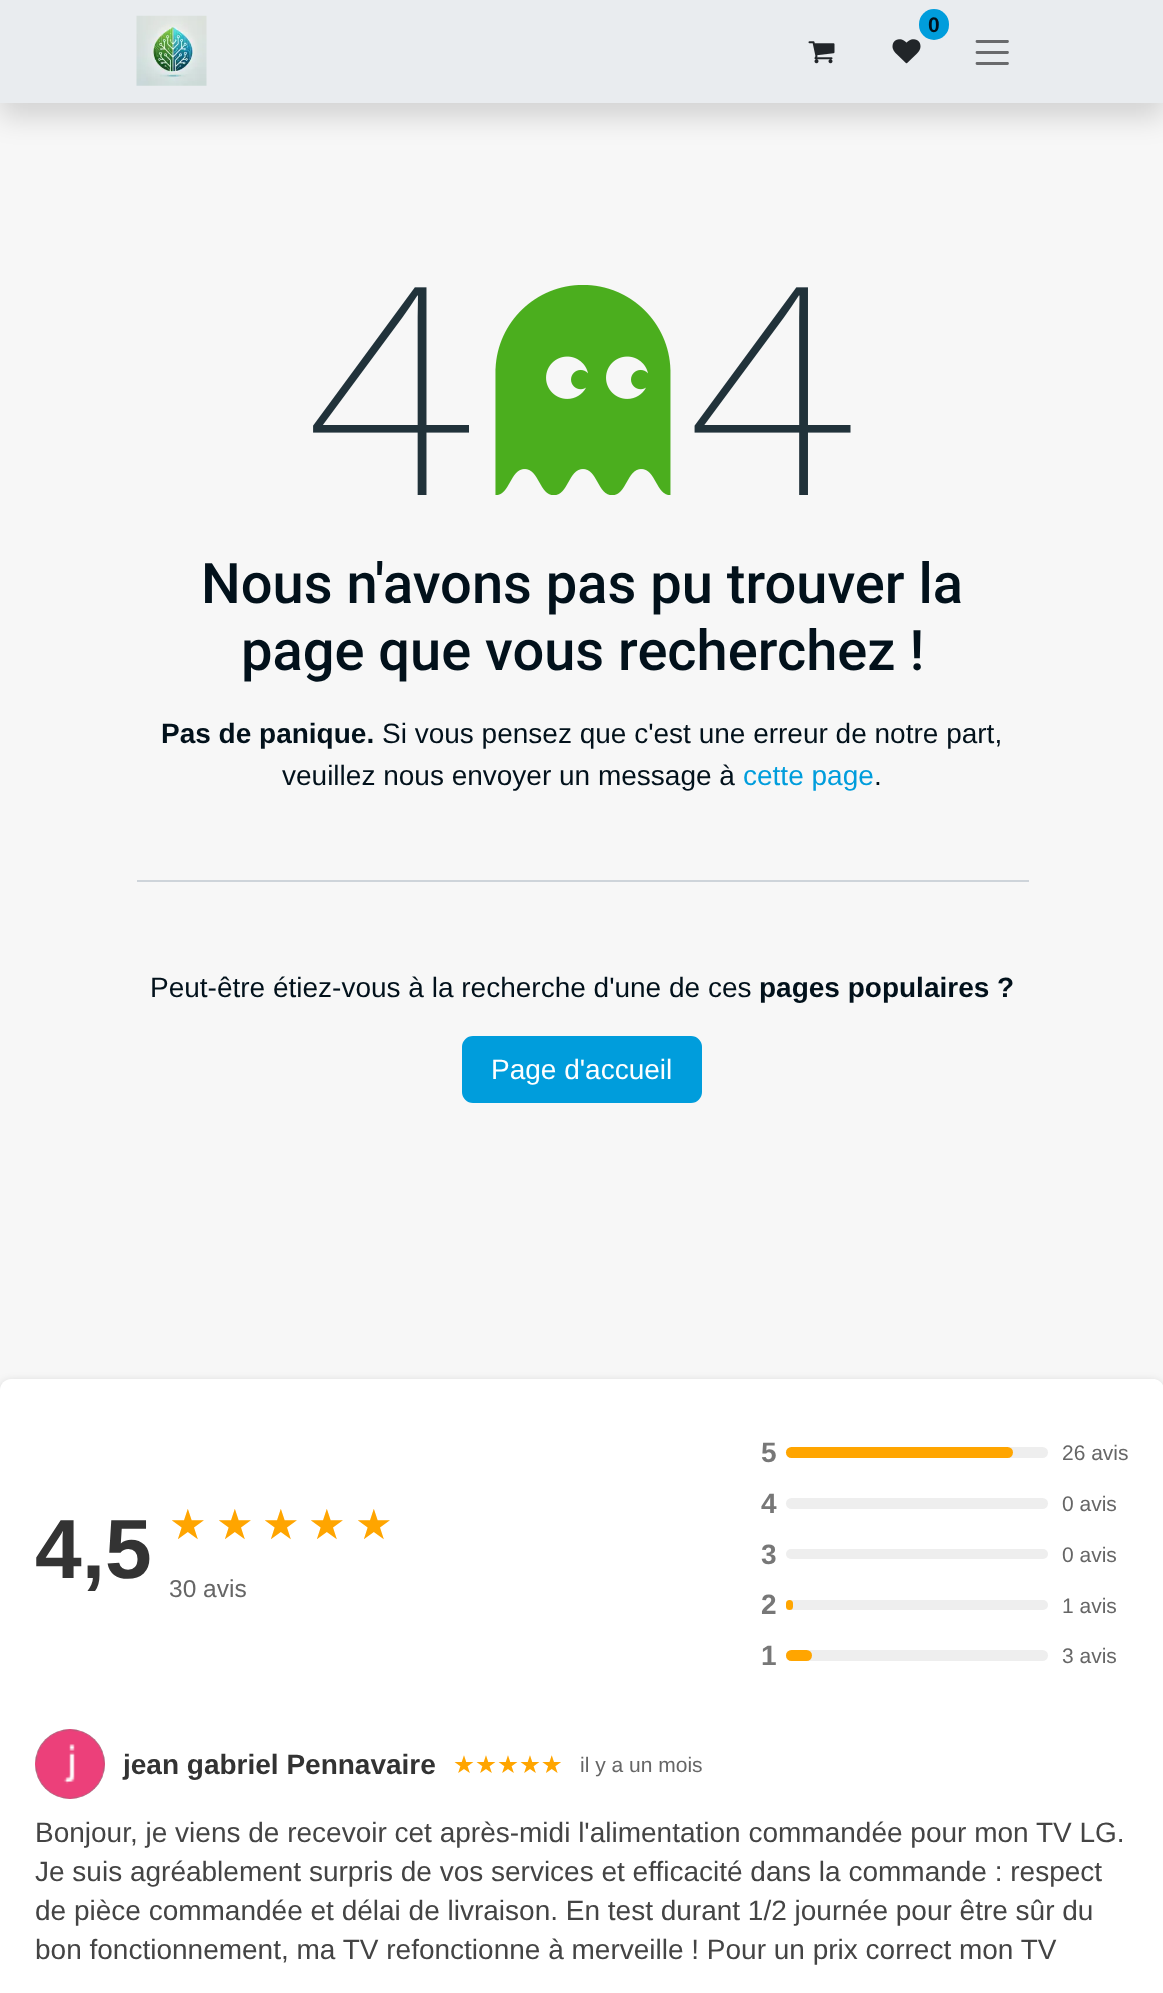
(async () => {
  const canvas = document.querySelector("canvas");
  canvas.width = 1163;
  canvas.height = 1993;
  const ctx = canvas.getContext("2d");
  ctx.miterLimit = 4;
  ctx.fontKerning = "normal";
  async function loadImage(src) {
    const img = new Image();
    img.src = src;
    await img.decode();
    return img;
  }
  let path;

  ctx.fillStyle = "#f7f7f7";
  ctx.fillRect(0, 0, 1163, 1993);
  ctx.fillStyle = "rgba(0, 0, 0, 0.15)";
  ctx.filter = "blur(14px)";
  ctx.beginPath();
  ctx.rect(0, 14, 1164, 103);
  ctx.fill();
  ctx.filter = "none";
  ctx.fillStyle = "#e9ecef";
  ctx.fillRect(0, 0, 1163, 103);
  ctx.drawImage(await loadImage("img/1.png"), 136, 15, 71, 71);
  ctx.drawImage(await loadImage("img/2.png"), 892, 39, 29, 25);
  ctx.fillStyle = "#009ddc";
  ctx.beginPath();
  ctx.roundRect(919, 9, 30, 31, 15);
  ctx.fill();
  ctx.drawImage(await loadImage("img/3.png"), 808, 41, 27, 23);
  path = new Path2D("M977 41.5H1007.5M977 52.5H1007.5M977 63.5H1007.5");
  ctx.strokeStyle = "#696a6c";
  ctx.lineWidth = 2.8;
  ctx.lineCap = "round";
  ctx.stroke(path);
  ctx.drawImage(await loadImage("img/4.png"), 313, 285, 538, 210);
  ctx.fillStyle = "#ced4da";
  ctx.fillRect(137, 880, 892, 2);
  ctx.fillStyle = "#009ddc";
  ctx.beginPath();
  ctx.roundRect(463, 1037, 238, 65, 10);
  ctx.fill();
  ctx.strokeStyle = "#009ddc";
  ctx.lineWidth = 2;
  ctx.stroke();
  ctx.fillStyle = "rgba(0, 0, 0, 0.15)";
  ctx.filter = "blur(4.5px)";
  ctx.beginPath();
  ctx.roundRect(0, 1381, 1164, 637, 11);
  ctx.fill();
  ctx.filter = "none";
  ctx.fillStyle = "#ffffff";
  path = new Path2D("M11 1379H1153C1159 1379 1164 1384 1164 1390V1993H0V1390C0 1384 5 1379 11 1379Z");
  ctx.fill(path);
  ctx.fillStyle = "#eeeeee";
  ctx.beginPath();
  ctx.roundRect(786, 1447, 262, 11, 5.5);
  ctx.fill();
  ctx.fillStyle = "#ffa500";
  ctx.beginPath();
  ctx.roundRect(786, 1447, 227, 11, 5.5);
  ctx.fill();
  ctx.fillStyle = "#eeeeee";
  ctx.beginPath();
  ctx.roundRect(786, 1498, 262, 11, 5.5);
  ctx.fill();
  ctx.beginPath();
  ctx.roundRect(786, 1549, 262, 10, 5);
  ctx.fill();
  ctx.beginPath();
  ctx.roundRect(786, 1600, 262, 10, 5);
  ctx.fill();
  ctx.fillStyle = "#ffa500";
  ctx.beginPath();
  ctx.roundRect(786, 1600, 7, 10, 3.5);
  ctx.fill();
  ctx.fillStyle = "#eeeeee";
  ctx.beginPath();
  ctx.roundRect(786, 1650, 262, 11, 5.5);
  ctx.fill();
  ctx.fillStyle = "#ffa500";
  ctx.beginPath();
  ctx.roundRect(786, 1650, 26, 11, 5.5);
  ctx.fill();
  ctx.fillStyle = "#cccccc";
  ctx.beginPath();
  ctx.arc(70, 1764, 35, 0, Math.PI * 2);
  ctx.fill();
  ctx.drawImage(await loadImage("img/5.png"), 35, 1729, 70, 70);
  ctx.font = "bold 21px Liberation Sans";
  ctx.fillStyle = "#02111b";
  ctx.fillText("0", 928, 32);
  ctx.font = "500 56px Roboto";
  ctx.fillText("Nous n'avons pas pu trouver la", 201, 603);
  ctx.fillText("page que vous recherchez !", 241, 670);
  ctx.font = "bold 28px Liberation Sans";
  ctx.fillText("Pas de panique.", 161, 743);
  ctx.font = "28px Liberation Sans";
  ctx.fillText("Si vous pensez que c'est une erreur de notre part,", 382, 743);
  ctx.fillText("veuillez nous envoyer un message à", 282, 785);
  ctx.fillStyle = "#009ddc";
  ctx.fillText("cette page", 743, 785);
  ctx.fillStyle = "#02111b";
  ctx.fillText(".", 874, 785);
  ctx.fillText("Peut-être étiez-vous à la recherche d'une de ces", 150, 997);
  ctx.font = "bold 28px Liberation Sans";
  ctx.fillText("pages populaires ?", 759, 997);
  ctx.font = "28px Liberation Sans";
  ctx.fillStyle = "#ffffff";
  ctx.fillText("Page d'accueil", 491, 1079);
  ctx.font = "bold 84px Liberation Sans";
  ctx.fillStyle = "#333333";
  ctx.fillText("4,5", 35, 1578);
  ctx.font = "42px DejaVu Sans";
  ctx.fillStyle = "#ffa500";
  for (const [text, x, y] of [
    ["★", 169, 1539],
    ["★", 216, 1539],
    ["★", 262, 1539],
    ["★", 308, 1539],
    ["★", 355, 1539],
  ]) {
    ctx.fillText(text, x, y);
  }
  ctx.font = "24.5px Liberation Sans";
  ctx.fillStyle = "#666666";
  ctx.fillText("30 avis", 169, 1597);
  ctx.font = "bold 28px Liberation Sans";
  ctx.fillStyle = "#777777";
  ctx.fillText("5", 761, 1462);
  ctx.font = "21px Liberation Sans";
  ctx.fillStyle = "#666666";
  ctx.fillText("26 avis", 1062, 1460);
  ctx.font = "bold 28px Liberation Sans";
  ctx.fillStyle = "#777777";
  ctx.fillText("4", 761, 1513);
  ctx.font = "21px Liberation Sans";
  ctx.fillStyle = "#666666";
  ctx.fillText("0 avis", 1062, 1511);
  ctx.font = "bold 28px Liberation Sans";
  ctx.fillStyle = "#777777";
  ctx.fillText("3", 761, 1564);
  ctx.font = "21px Liberation Sans";
  ctx.fillStyle = "#666666";
  ctx.fillText("0 avis", 1062, 1562);
  ctx.font = "bold 28px Liberation Sans";
  ctx.fillStyle = "#777777";
  ctx.fillText("2", 761, 1614);
  ctx.font = "21px Liberation Sans";
  ctx.fillStyle = "#666666";
  ctx.fillText("1 avis", 1062, 1613);
  ctx.font = "bold 28px Liberation Sans";
  ctx.fillStyle = "#777777";
  ctx.fillText("1", 761, 1665);
  ctx.font = "21px Liberation Sans";
  ctx.fillStyle = "#666666";
  ctx.fillText("3 avis", 1062, 1663);
  ctx.font = "bold 28px Liberation Sans";
  ctx.fillStyle = "#333333";
  ctx.fillText("jean gabriel Pennavaire", 123, 1774);
  ctx.font = "24.5px DejaVu Sans";
  ctx.fillStyle = "#ffa500";
  ctx.fillText("★★★★★", 453, 1773);
  ctx.font = "21px Liberation Sans";
  ctx.fillStyle = "#666666";
  ctx.fillText("il y a un mois", 580, 1772);
  ctx.font = "28px Liberation Sans";
  ctx.fillStyle = "#444444";
  for (const [text, x, y] of [
    ["Bonjour, je viens de recevoir cet après-midi l'alimentation commandée pour mon TV LG.", 35, 1842],
    ["Je suis agréablement surpris de vos services et efficacité dans la commande : respect", 35, 1881],
    ["de pièce commandée et délai de livraison. En test durant 1/2 journée pour être sûr du", 35, 1920],
    ["bon fonctionnement, ma TV refonctionne à merveille ! Pour un prix correct mon TV", 35, 1959],
  ]) {
    ctx.fillText(text, x, y);
  }
})();
